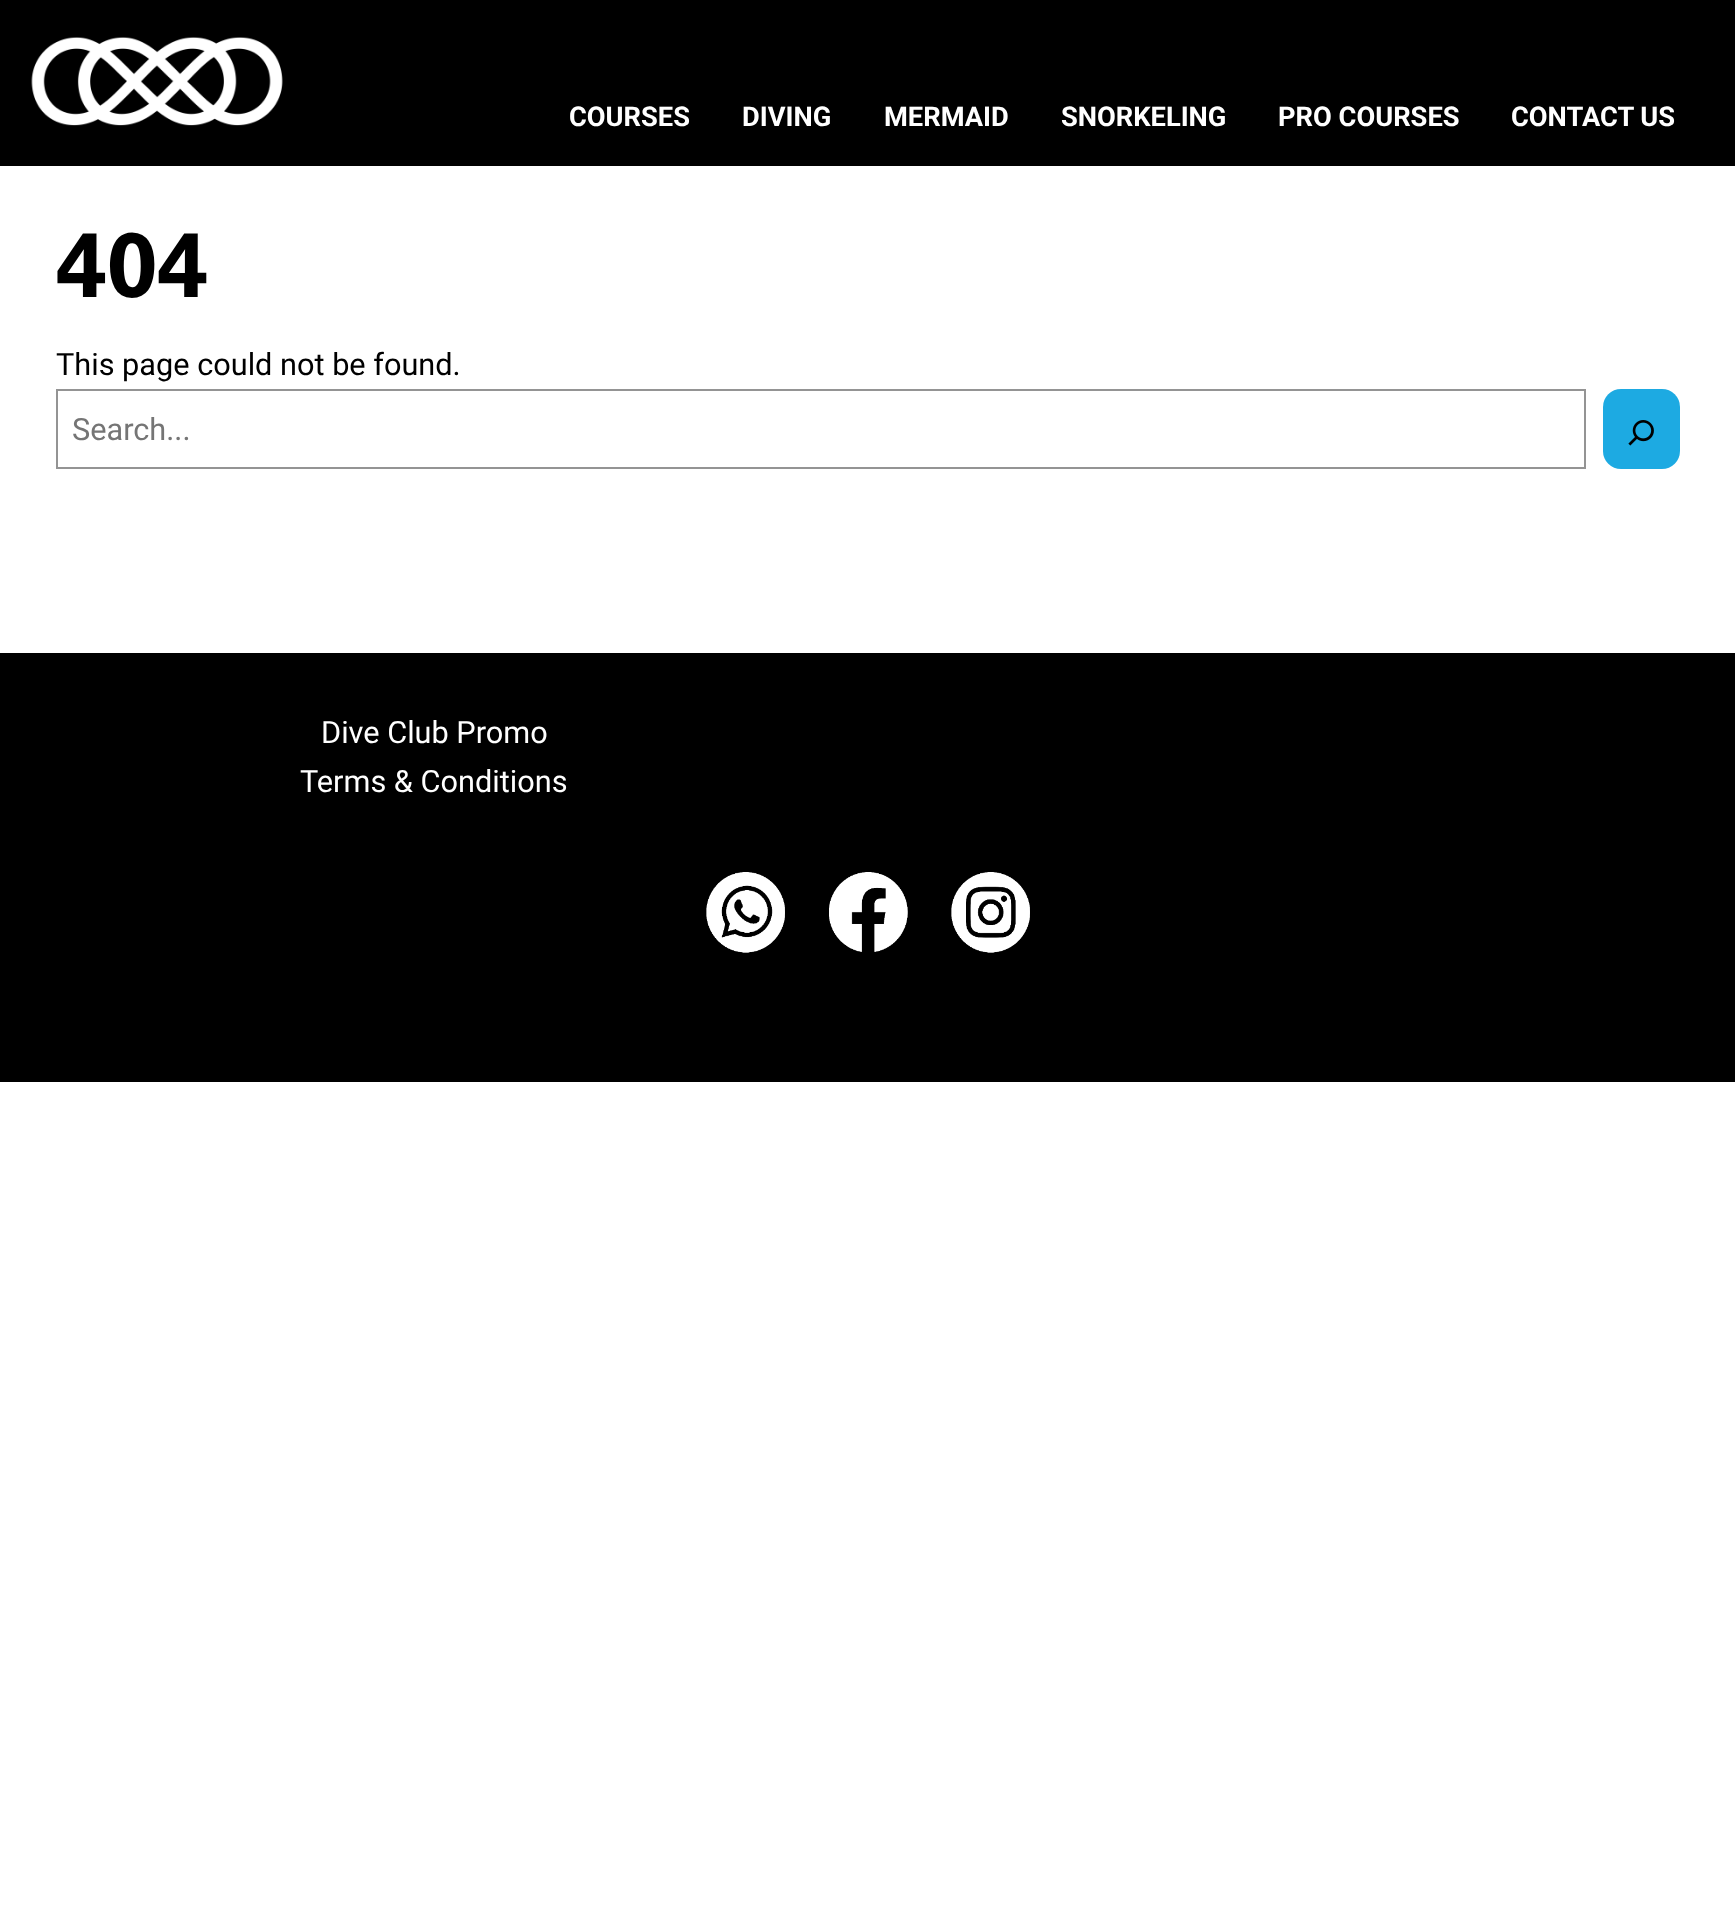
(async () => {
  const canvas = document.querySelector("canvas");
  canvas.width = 1735;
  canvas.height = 1920;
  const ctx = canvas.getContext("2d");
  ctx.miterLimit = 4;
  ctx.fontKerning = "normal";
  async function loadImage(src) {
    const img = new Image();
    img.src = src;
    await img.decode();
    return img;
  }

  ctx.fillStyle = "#ffffff";
  ctx.fillRect(0, 0, 1735, 1920);
  ctx.fillStyle = "#000000";
  ctx.fillRect(0, 0, 1735, 166);
  ctx.drawImage(await loadImage("img/1.png"), 31, 37, 252, 89);
  ctx.strokeStyle = "#949494";
  ctx.lineWidth = 2;
  ctx.strokeRect(57, 390, 1528, 78);
  ctx.fillStyle = "#1daae2";
  ctx.beginPath();
  ctx.roundRect(1603, 389, 77, 80, 18);
  ctx.fill();
  ctx.drawImage(await loadImage("img/2.png"), 1628, 420, 26, 26);
  ctx.fillStyle = "#000000";
  ctx.fillRect(0, 653, 1735, 429);
  ctx.drawImage(await loadImage("img/3.png"), 706, 872, 79, 81);
  ctx.drawImage(await loadImage("img/4.png"), 829, 872, 79, 80);
  ctx.drawImage(await loadImage("img/5.png"), 951, 872, 79, 81);
  ctx.font = "bold 27.25px Roboto";
  ctx.fillStyle = "#ffffff";
  for (const [text, x, y] of [
    ["COURSES", 569, 126],
    ["DIVING", 742, 126],
    ["MERMAID", 884, 126],
    ["SNORKELING", 1061, 126],
    ["PRO COURSES", 1278, 126],
    ["CONTACT US", 1511, 126],
  ]) {
    ctx.fillText(text, x, y);
  }
  ctx.font = "bold 91px Univers";
  ctx.fillStyle = "#000000";
  ctx.fillText("404", 56, 297);
  ctx.font = "30.7px Roboto";
  ctx.fillText("This page could not be found.", 56, 375);
  ctx.fillStyle = "#757575";
  ctx.fillText("Search...", 72, 440);
  ctx.fillStyle = "#ffffff";
  ctx.fillText("Dive Club Promo", 321, 743);
  ctx.fillText("Terms & Conditions", 300, 792);
})();
